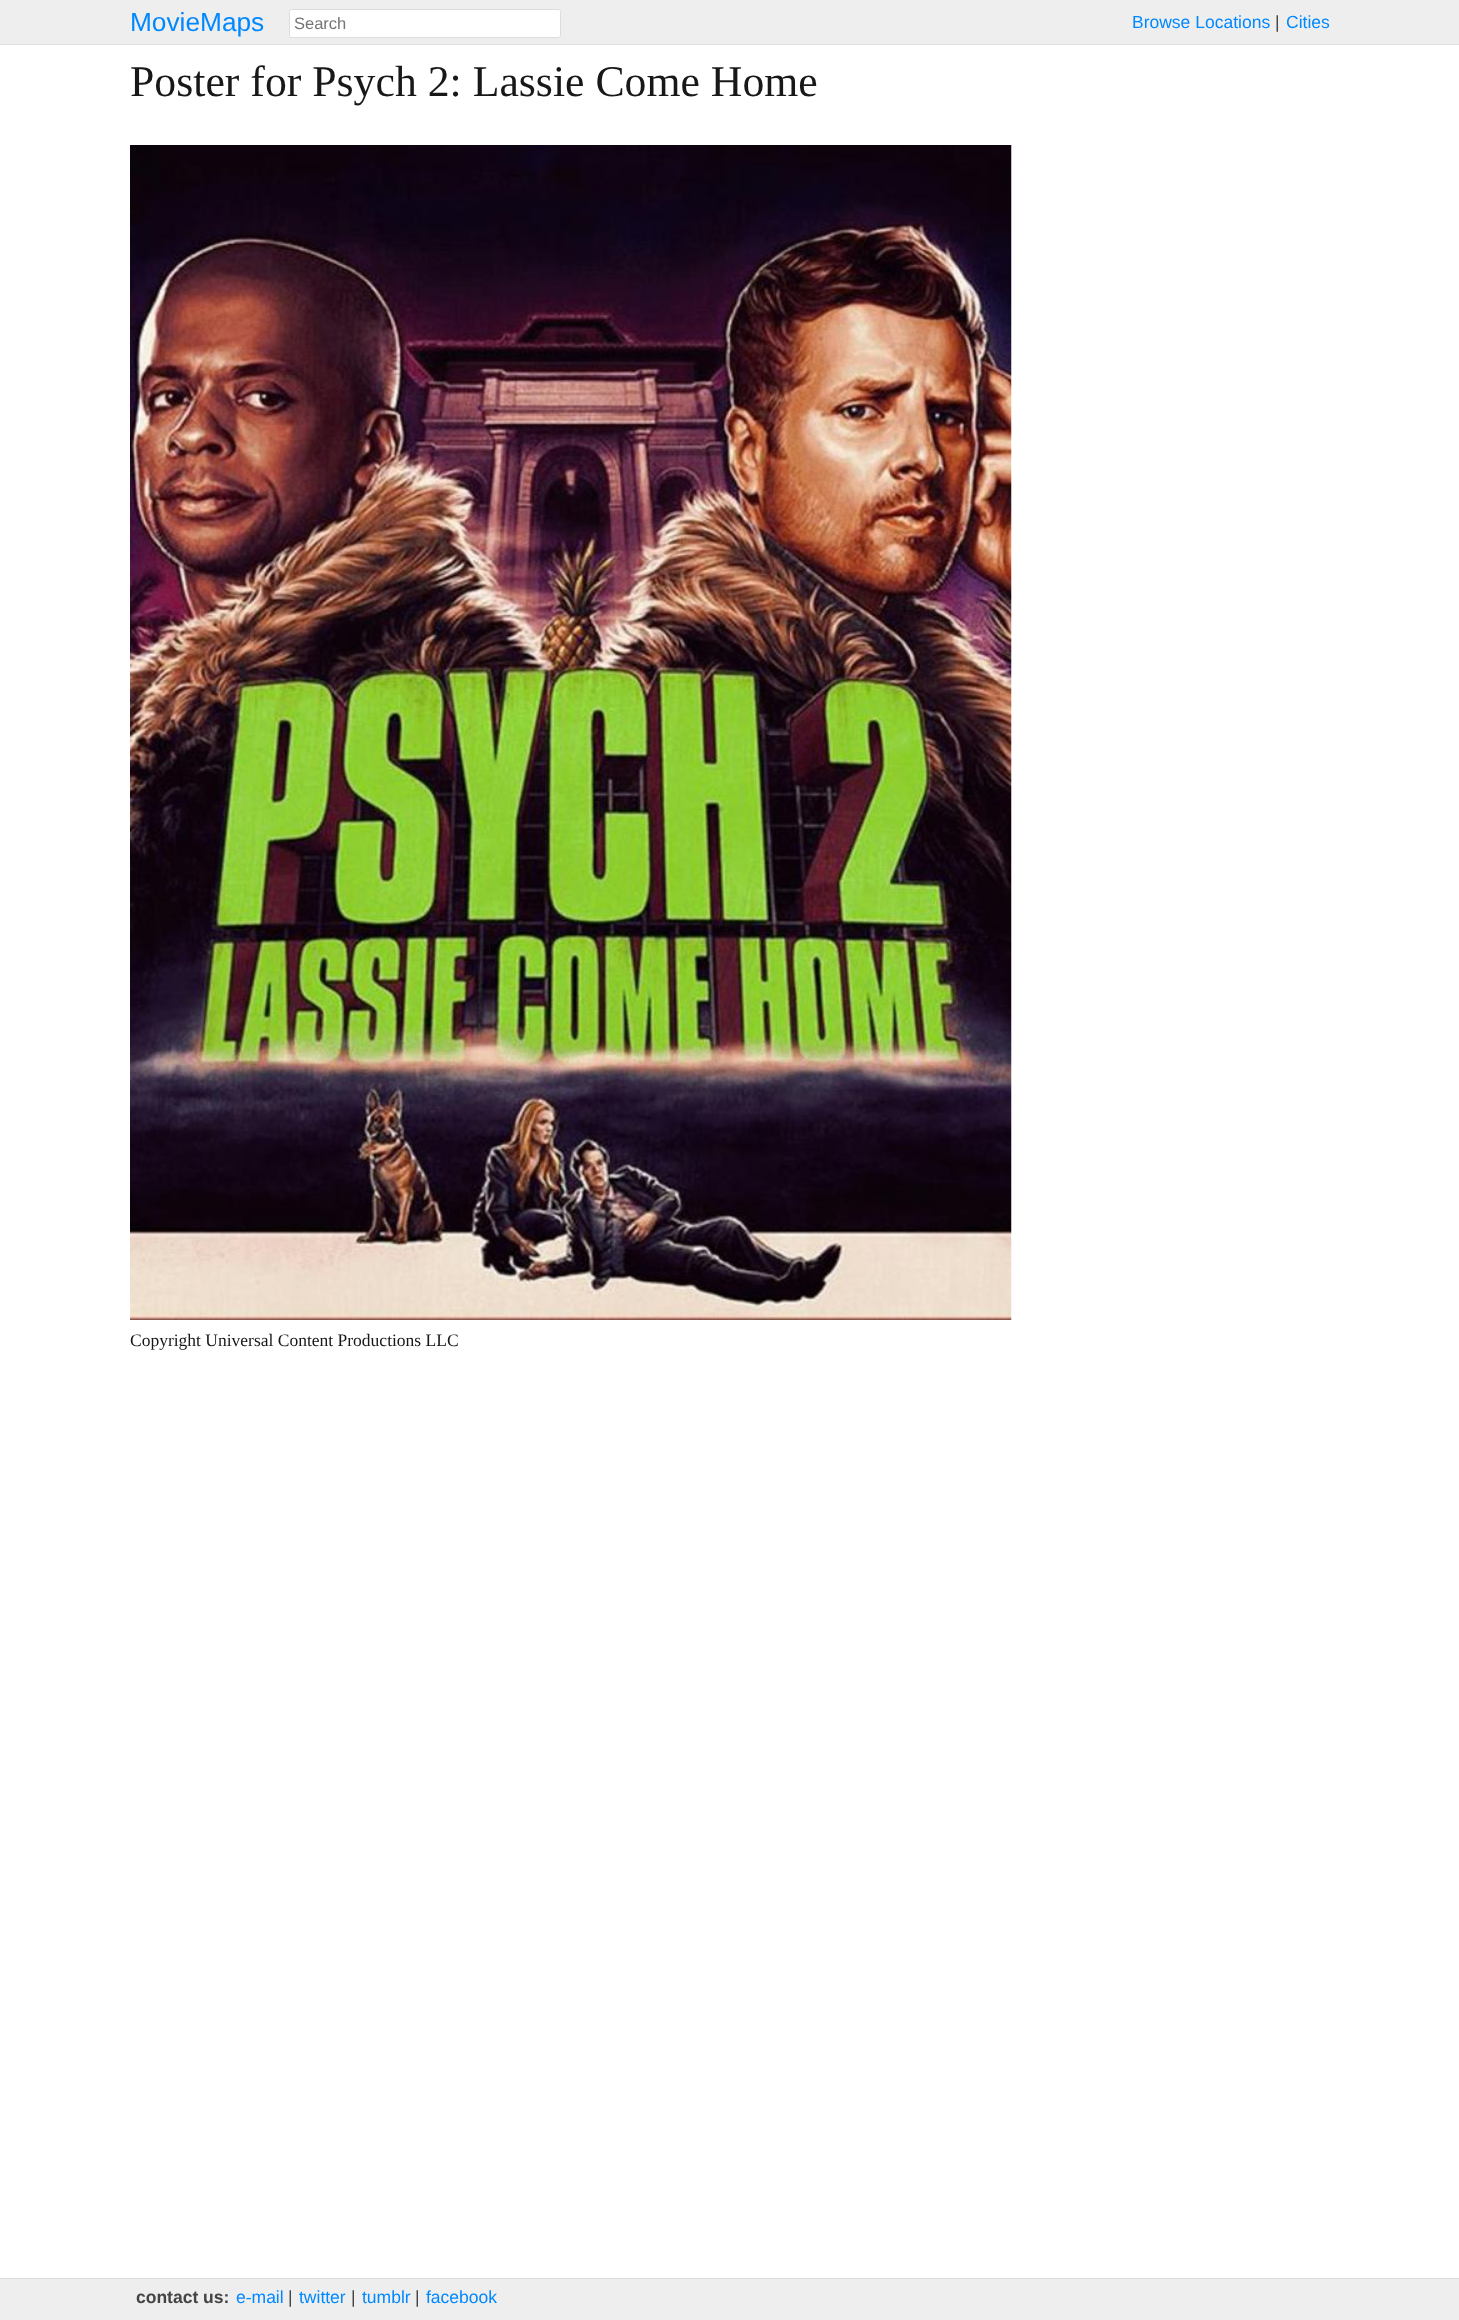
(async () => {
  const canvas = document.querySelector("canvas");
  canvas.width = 1459;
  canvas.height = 2320;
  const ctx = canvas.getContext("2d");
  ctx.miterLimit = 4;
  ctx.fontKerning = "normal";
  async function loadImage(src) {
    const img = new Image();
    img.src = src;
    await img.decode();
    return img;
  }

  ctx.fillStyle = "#ffffff";
  ctx.fillRect(0, 0, 1459, 2320);
  ctx.fillStyle = "#eeeeee";
  ctx.fillRect(0, 0, 1459, 44);
  ctx.fillStyle = "#dddddd";
  ctx.fillRect(0, 44, 1459, 1);
  ctx.fillStyle = "#ffffff";
  ctx.beginPath();
  ctx.roundRect(289.5, 9.5, 271, 28, 2);
  ctx.fill();
  ctx.strokeStyle = "#dddddd";
  ctx.stroke();
  ctx.drawImage(await loadImage("img/1.png"), 130, 145, 882, 1175);
  ctx.fillStyle = "#eeeeee";
  ctx.fillRect(0, 2279, 1459, 41);
  ctx.fillStyle = "#dddddd";
  ctx.fillRect(0, 2278, 1459, 1);
  ctx.font = "26.25px Liberation Sans";
  ctx.fillStyle = "#0088ff";
  ctx.fillText("MovieMaps", 130, 31);
  ctx.font = "16.5px Liberation Sans";
  ctx.fillStyle = "#757575";
  ctx.fillText("Search", 294, 29);
  ctx.font = "17.5px Liberation Sans";
  ctx.fillStyle = "#0088ff";
  ctx.fillText("Browse Locations", 1132, 28);
  ctx.fillStyle = "#444444";
  ctx.fillText("|", 1275, 28);
  ctx.fillStyle = "#0088ff";
  ctx.fillText("Cities", 1286, 28);
  ctx.font = "43.75px Liberation Serif";
  ctx.fillStyle = "#181818";
  ctx.fillText("Poster for Psych 2: Lassie Come Home", 130, 96);
  ctx.font = "17.5px Liberation Serif";
  ctx.fillText("Copyright Universal Content Productions LLC", 130, 1346);
  ctx.font = "bold 17.5px Liberation Sans";
  ctx.fillStyle = "#444444";
  ctx.fillText("contact us:", 136, 2303);
  ctx.font = "17.5px Liberation Sans";
  ctx.fillStyle = "#0088ff";
  ctx.fillText("e‑mail", 236, 2303);
  ctx.fillStyle = "#444444";
  ctx.fillText("|", 288, 2303);
  ctx.fillStyle = "#0088ff";
  ctx.fillText("twitter", 299, 2303);
  ctx.fillStyle = "#444444";
  ctx.fillText("|", 351, 2303);
  ctx.fillStyle = "#0088ff";
  ctx.fillText("tumblr", 362, 2303);
  ctx.fillStyle = "#444444";
  ctx.fillText("|", 415, 2303);
  ctx.fillStyle = "#0088ff";
  ctx.fillText("facebook", 426, 2303);
})();
